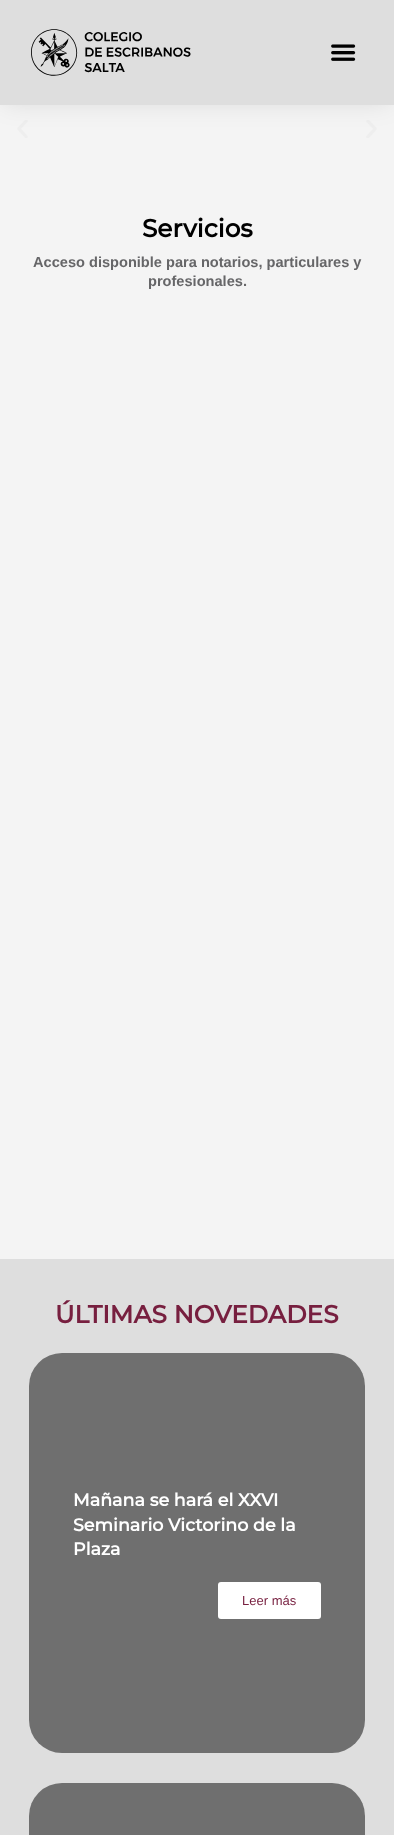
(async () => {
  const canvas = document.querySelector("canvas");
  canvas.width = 394;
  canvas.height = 1835;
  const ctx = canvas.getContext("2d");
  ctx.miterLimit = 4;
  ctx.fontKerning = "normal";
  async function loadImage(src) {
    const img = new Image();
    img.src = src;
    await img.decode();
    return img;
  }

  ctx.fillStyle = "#f4f4f4";
  ctx.fillRect(0, 0, 394, 1835);
  ctx.drawImage(await loadImage("img/3.png"), 17, 120, 11, 18);
  ctx.drawImage(await loadImage("img/4.png"), 366, 120, 11, 18);
  ctx.fillStyle = "rgba(0, 0, 0, 0.12)";
  ctx.filter = "blur(13.5px)";
  ctx.beginPath();
  ctx.rect(4, 4, 386, 97);
  ctx.fill();
  ctx.filter = "none";
  ctx.fillStyle = "#dedede";
  ctx.fillRect(0, 0, 394, 105);
  ctx.drawImage(await loadImage("img/1.png"), 31, 29, 160, 47);
  ctx.drawImage(await loadImage("img/2.png"), 331, 44, 25, 17);
  ctx.fillRect(0, 1259, 394, 576);
  ctx.fillStyle = "#6f6f6f";
  ctx.beginPath();
  ctx.roundRect(29, 1353, 336, 400, 33);
  ctx.fill();
  ctx.fillStyle = "#ffffff";
  ctx.beginPath();
  ctx.roundRect(218, 1582, 103, 37, 3);
  ctx.fill();
  ctx.fillStyle = "#6f6f6f";
  ctx.beginPath();
  ctx.roundRect(29, 1783, 336, 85, 33);
  ctx.fill();
  ctx.font = "bold 24.75px Montserrat";
  ctx.fillStyle = "#000000";
  ctx.fillText("Servicios", 142, 237);
  ctx.font = "bold 14.6px Liberation Sans";
  ctx.fillStyle = "#666668";
  ctx.fillText("Acceso disponible para notarios, particulares y", 33, 267);
  ctx.fillText("profesionales.", 148, 286);
  ctx.font = "bold 24.75px Montserrat";
  ctx.fillStyle = "#771f3f";
  ctx.fillText("ÚLTIMAS NOVEDADES", 55, 1323);
  ctx.font = "bold 17.5px Montserrat";
  ctx.fillStyle = "#ffffff";
  for (const [text, x, y] of [
    ["Mañana se hará el XXVI", 73, 1506],
    ["Seminario Victorino de la", 73, 1531],
    ["Plaza", 73, 1555],
  ]) {
    ctx.fillText(text, x, y);
  }
  ctx.font = "13px Liberation Sans";
  ctx.fillStyle = "#771f3f";
  ctx.fillText("Leer más", 242, 1605);
})();
